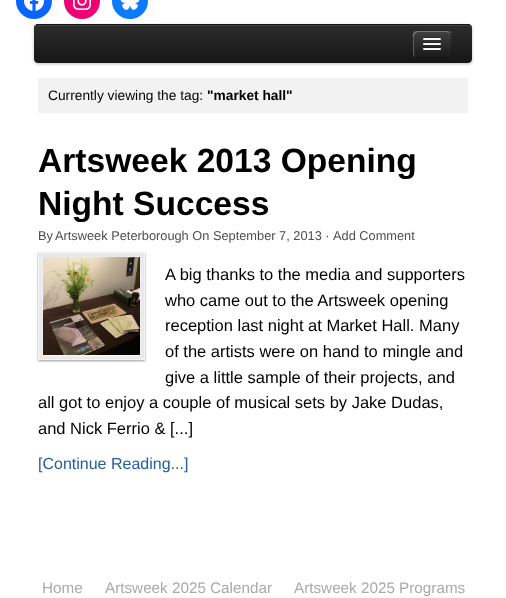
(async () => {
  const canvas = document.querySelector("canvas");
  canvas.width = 506;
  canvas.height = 598;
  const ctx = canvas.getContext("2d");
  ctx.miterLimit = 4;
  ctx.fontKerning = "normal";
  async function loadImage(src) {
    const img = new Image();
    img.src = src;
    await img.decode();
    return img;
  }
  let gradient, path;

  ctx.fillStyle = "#ffffff";
  ctx.fillRect(0, 0, 506, 598);
  ctx.fillStyle = "#0866ff";
  ctx.beginPath();
  ctx.arc(34, 1, 18, 0, Math.PI * 2);
  ctx.fill();
  ctx.drawImage(await loadImage("img/1.png"), 24, 0, 20, 11);
  ctx.fillStyle = "#f00075";
  ctx.beginPath();
  ctx.arc(82, 1, 18, 0, Math.PI * 2);
  ctx.fill();
  ctx.drawImage(await loadImage("img/2.png"), 73, 0, 18, 10);
  ctx.fillStyle = "#0a7aff";
  ctx.beginPath();
  ctx.arc(130, 1, 18, 0, Math.PI * 2);
  ctx.fill();
  ctx.drawImage(await loadImage("img/3.png"), 120, 0, 20, 10);
  ctx.save();
  path = new Path2D("M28 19H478V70H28ZM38 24H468C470 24 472 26 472 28V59C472 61 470 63 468 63H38C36 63 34 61 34 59V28C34 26 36 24 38 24Z");
  ctx.clip(path, "evenodd");
  ctx.fillStyle = "rgba(0, 0, 0, 0.25)";
  ctx.filter = "blur(1.5px)";
  ctx.beginPath();
  ctx.roundRect(34, 25, 438, 39, 4);
  ctx.fill();
  ctx.filter = "none";
  ctx.restore();
  ctx.fillStyle = "rgba(0, 0, 0, 0.12)";
  ctx.beginPath();
  ctx.roundRect(34, 24, 438, 39, 4);
  ctx.fill();
  ctx.save();
  ctx.beginPath();
  ctx.roundRect(34, 24, 438, 39, 4);
  ctx.clip();
  gradient = ctx.createLinearGradient(253, 25, 253, 63);
  gradient.addColorStop(0, "rgba(0, 0, 0, 0.8)");
  gradient.addColorStop(1, "rgba(0, 0, 0, 0.9)");
  ctx.fillStyle = gradient;
  ctx.beginPath();
  ctx.roundRect(34, 25, 438, 38, [0, 0, 4, 4]);
  ctx.fill();
  ctx.restore();
  ctx.fillStyle = "#424242";
  path = new Path2D("M38 26H468C470 26 472 27 472 29C472 27 471 25 468 25H38C35 25 34 27 34 29C34 27 36 26 38 26Z");
  ctx.fill(path);
  ctx.fillStyle = "rgba(0, 0, 0, 0.9)";
  ctx.fillRect(36, 24, 434, 1);
  ctx.fillStyle = "rgba(155, 155, 155, 0.03)";
  ctx.fillRect(412, 30, 40, 28);
  ctx.save();
  ctx.beginPath();
  ctx.roundRect(412, 30, 40, 28, 5);
  ctx.clip();
  gradient = ctx.createLinearGradient(432, 31, 432, 57);
  gradient.addColorStop(0, "rgba(255, 255, 255, 0.1)");
  gradient.addColorStop(1, "rgba(0, 0, 0, 0.08)");
  ctx.fillStyle = gradient;
  ctx.fillRect(412, 31, 40, 26);
  ctx.restore();
  ctx.fillStyle = "rgba(255, 255, 255, 0.3)";
  path = new Path2D("M418 32H443C447 32 449 32.5 450.5 33C450 32 448.5 31 447 31H417C415 31 413 33 413 35V53C413 55 414 56.5 415.5 57C415 56 414.5 55 414 53.5L413.5 37.5L414.5 34.5C415 33 416.5 32 418 32Z");
  ctx.fill(path);
  path = new Path2D("M450 32C452 33.5 451.5 36 451.5 38V54C450.5 58.5 445.5 57.5 442 57.5H422C419.5 57.5 416 58 414 56");
  ctx.strokeStyle = "rgba(0, 0, 0, 0.25)";
  ctx.stroke(path);
  path = new Path2D("M414 56C412 54.5 412.5 52 412.5 50V34C413.5 29.5 418.5 30.5 422 30.5H442C444.5 30.5 448 30 450 32");
  ctx.strokeStyle = "rgba(0, 0, 0, 0.17)";
  ctx.stroke(path);
  ctx.fillStyle = "#2a2a2a";
  path = new Path2D("M424 37C423 37 423 38 423 38.5C424 37.5 430.5 38 432 38C433.5 38 440 37.5 441 38.5C441 38 441 37 440 37Z");
  ctx.fill(path);
  ctx.fillStyle = "#f5f5f5";
  ctx.beginPath();
  ctx.roundRect(423, 38, 18, 2, 1);
  ctx.fill();
  ctx.fillStyle = "#242424";
  path = new Path2D("M424 42C423 42 423 43 423 43.5C424 42.5 430.5 43 432 43C433.5 43 440 42.5 441 43.5C441 43 441 42 440 42Z");
  ctx.fill(path);
  ctx.fillStyle = "#f5f5f5";
  ctx.beginPath();
  ctx.roundRect(423, 43, 18, 2, 1);
  ctx.fill();
  ctx.fillStyle = "#1e1e1e";
  path = new Path2D("M424 47C423 47 423 48 423 48.5C424 47.5 430.5 48 432 48C433.5 48 440 47.5 441 48.5C441 48 441 47 440 47Z");
  ctx.fill(path);
  ctx.fillStyle = "#f5f5f5";
  ctx.beginPath();
  ctx.roundRect(423, 48, 18, 2, 1);
  ctx.fill();
  ctx.fillStyle = "#f2f2f2";
  ctx.fillRect(38, 78, 430, 35);
  ctx.fillStyle = "rgba(0, 0, 0, 0.4)";
  ctx.filter = "blur(1px)";
  ctx.beginPath();
  ctx.rect(38, 253, 107, 108);
  ctx.fill();
  ctx.filter = "none";
  ctx.fillStyle = "#e9e9e9";
  ctx.beginPath();
  ctx.rect(38.5, 252.5, 106, 107);
  ctx.fill();
  ctx.strokeStyle = "#f4f4f4";
  ctx.stroke();
  ctx.fillStyle = "#fefefe";
  ctx.filter = "blur(1px)";
  ctx.beginPath();
  ctx.rect(43, 258, 97, 98);
  ctx.fill();
  ctx.filter = "none";
  ctx.drawImage(await loadImage("img/4.png"), 43, 257, 97, 98);
  ctx.font = "13.75px Liberation Sans";
  ctx.fillStyle = "#000000";
  ctx.fillText("Currently viewing the tag:", 48, 100);
  ctx.font = "bold 13.75px Liberation Sans";
  ctx.fillText("\"market hall\"", 207, 100);
  ctx.font = "bold 33.6px Liberation Sans";
  ctx.fillText("Artsweek 2013 Opening", 38, 172);
  ctx.fillText("Night Success", 38, 215);
  ctx.font = "12.8px Liberation Sans";
  ctx.fillStyle = "#4d4d4d";
  for (const [text, x, y] of [
    ["By", 38, 240],
    ["Artsweek Peterborough On September 7, 2013 ·", 55, 240],
    ["Add Comment", 333, 240],
  ]) {
    ctx.fillText(text, x, y);
  }
  ctx.font = "16.5px Liberation Sans";
  ctx.fillStyle = "#000000";
  for (const [text, x, y] of [
    ["A big thanks to the media and supporters", 165, 280],
    ["who came out to the Artsweek opening", 165, 306],
    ["reception last night at Market Hall. Many", 165, 331],
    ["of the artists were on hand to mingle and", 165, 357],
    ["give a little sample of their projects, and", 165, 383],
    ["all got to enjoy a couple of musical sets by Jake Dudas,", 38, 408],
    ["and Nick Ferrio & [...]", 38, 434],
  ]) {
    ctx.fillText(text, x, y);
  }
  ctx.font = "16px Liberation Sans";
  ctx.fillStyle = "#225e9b";
  ctx.fillText("[Continue Reading...]", 38, 469);
  ctx.font = "15.25px Liberation Sans";
  ctx.fillStyle = "#aaaaaa";
  for (const [text, x, y] of [
    ["Home", 42, 593],
    ["Artsweek 2025 Calendar", 105, 593],
    ["Artsweek 2025 Programs", 294, 593],
  ]) {
    ctx.fillText(text, x, y);
  }
})();
